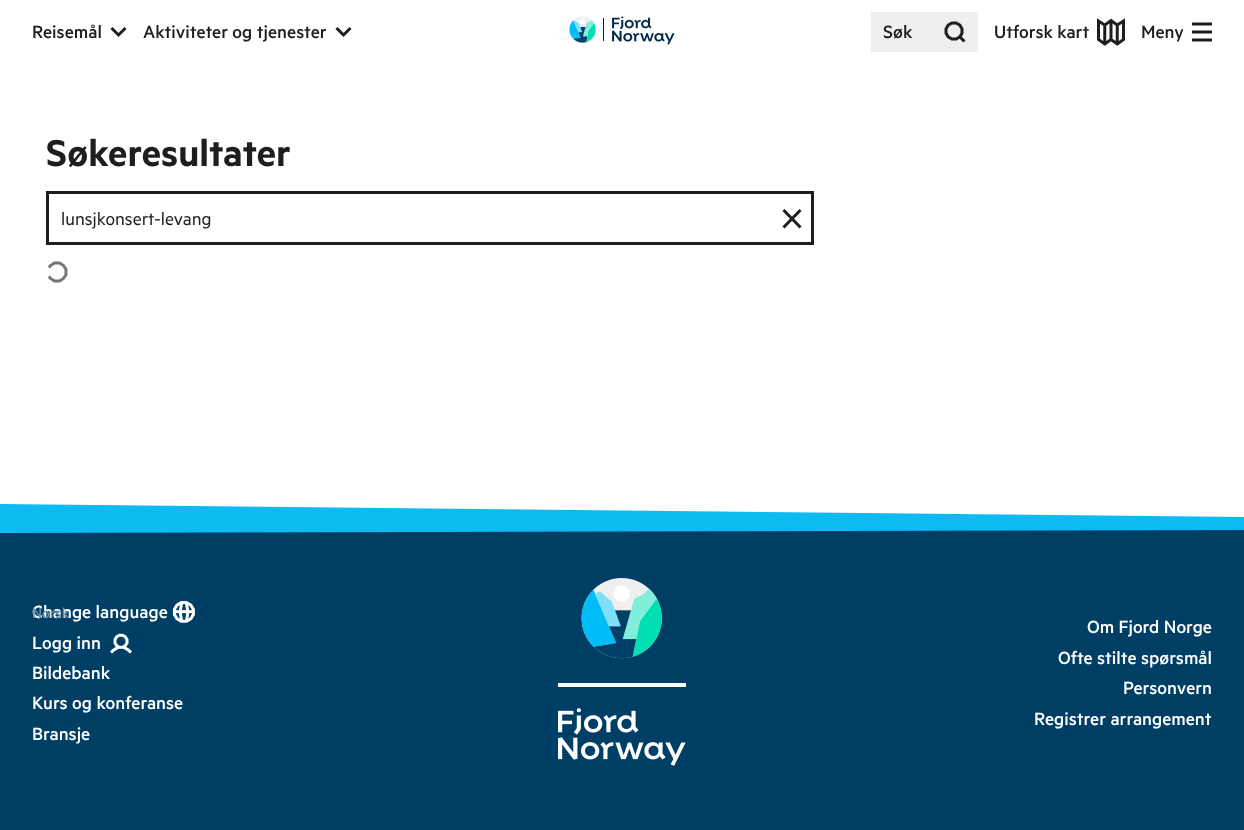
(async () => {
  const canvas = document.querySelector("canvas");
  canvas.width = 1244;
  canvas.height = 830;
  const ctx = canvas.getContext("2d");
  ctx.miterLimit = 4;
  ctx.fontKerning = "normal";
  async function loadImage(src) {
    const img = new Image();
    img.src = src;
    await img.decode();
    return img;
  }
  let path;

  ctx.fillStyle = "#ffffff";
  ctx.fillRect(0, 0, 1244, 830);
  path = new Path2D("M111.5 28L118.5 35L125.5 28");
  ctx.strokeStyle = "#1e1e1e";
  ctx.lineWidth = 3;
  ctx.stroke(path);
  path = new Path2D("M336.5 28L343.5 35L350.5 28");
  ctx.stroke(path);
  ctx.drawImage(await loadImage("img/1.png"), 569, 16, 106, 29);
  ctx.fillStyle = "#efefef";
  ctx.fillRect(871, 12, 107, 40);
  ctx.drawImage(await loadImage("img/2.png"), 944, 21, 22, 22);
  ctx.drawImage(await loadImage("img/3.png"), 1097, 18, 28, 28);
  path = new Path2D("M1192 40H1212M1192 32H1212M1192 24H1212");
  ctx.stroke(path);
  ctx.strokeRect(47.5, 192.5, 765, 51);
  path = new Path2D("M800.5 210L783.5 227.5M783.5 210L800.5 227.5");
  ctx.stroke(path);
  path = new Path2D("M49 267.5L50.5 265.5L54.5 263H59.5L63.5 265.5L66 269.5V274.5L63.5 278.5L59.5 281H54.5L50.5 278.5L49 276.5");
  ctx.strokeStyle = "#767676";
  ctx.stroke(path);
  ctx.fillStyle = "#0dbbf2";
  path = new Path2D("M0 504L1244 517V830H0Z");
  ctx.fill(path);
  ctx.fillStyle = "#003f65";
  path = new Path2D("M0 533L1244 530V830H0Z");
  ctx.fill(path);
  ctx.drawImage(await loadImage("img/4.png"), 172, 601, 23, 22);
  ctx.drawImage(await loadImage("img/5.png"), 110, 633, 22, 21);
  ctx.drawImage(await loadImage("img/6.png"), 558, 578, 128, 188);
  ctx.font = "500 20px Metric";
  ctx.fillStyle = "#1e1e1e";
  for (const [text, x, y] of [
    ["Reisemål", 32, 38],
    ["Aktiviteter og tjenester", 143, 38],
    ["Søk", 883, 38],
    ["Utforsk kart", 994, 38],
    ["Meny", 1141, 38],
  ]) {
    ctx.fillText(text, x, y);
  }
  ctx.font = "600 42px Metric";
  ctx.fillText("Søkeresultater", 46, 166);
  ctx.font = "20px Metric";
  ctx.fillText("lunsjkonsert-levang", 61, 225);
  ctx.font = "500 20px Metric";
  ctx.fillStyle = "#ffffff";
  ctx.fillText("Change language", 32, 618);
  ctx.font = "500 16px Metric";
  ctx.fillStyle = "#6a8fa5";
  ctx.fillText("Norsk", 32, 618);
  ctx.font = "500 20px Metric";
  ctx.fillStyle = "#ffffff";
  for (const [text, x, y] of [
    ["Logg inn", 32, 649],
    ["Bildebank", 32, 679],
    ["Kurs og konferanse", 32, 709],
    ["Bransje", 32, 740],
    ["Om Fjord Norge", 1087, 633],
    ["Ofte stilte spørsmål", 1058, 664],
    ["Personvern", 1123, 694],
    ["Registrer arrangement", 1034, 725],
  ]) {
    ctx.fillText(text, x, y);
  }
})();
